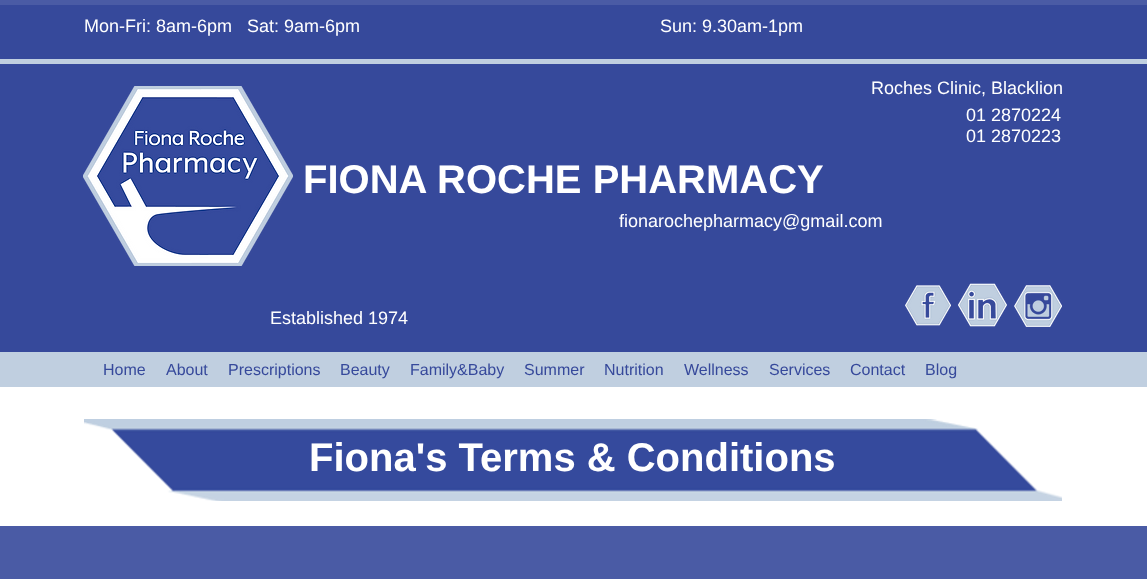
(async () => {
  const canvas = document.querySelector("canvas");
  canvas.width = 1147;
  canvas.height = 579;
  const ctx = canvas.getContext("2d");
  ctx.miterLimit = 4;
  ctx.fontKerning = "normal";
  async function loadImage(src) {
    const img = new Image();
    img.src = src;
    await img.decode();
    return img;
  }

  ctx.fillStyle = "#ffffff";
  ctx.fillRect(0, 0, 1147, 579);
  for (const [x, y, w, h, color] of [
    [0, 5, 1147, 347, "#36499b"],
    [0, 0, 1147, 5, "#4a5ba5"],
    [0, 59, 1147, 5, "#c0cfe0"],
  ]) {
    ctx.fillStyle = color;
    ctx.fillRect(x, y, w, h);
  }
  ctx.drawImage(await loadImage("img/1.png"), 83, 86, 210, 180);
  ctx.drawImage(await loadImage("img/2.png"), 905, 285, 46, 41);
  ctx.drawImage(await loadImage("img/3.png"), 958, 283, 49, 44);
  ctx.drawImage(await loadImage("img/4.png"), 1014, 285, 48, 42);
  ctx.fillRect(0, 352, 1147, 35);
  ctx.drawImage(await loadImage("img/5.png"), 84, 419, 978, 82);
  ctx.fillStyle = "#4a5ba5";
  ctx.fillRect(0, 526, 1147, 53);
  ctx.font = "18px Liberation Sans";
  ctx.fillStyle = "#ffffff";
  for (const [text, x, y] of [
    ["Mon-Fri: 8am-6pm   Sat: 9am-6pm", 84, 32],
    ["Sun: 9.30am-1pm", 660, 32],
    ["Roches Clinic, Blacklion", 871, 94],
    ["01 2870224", 966, 121],
    ["01 2870223", 966, 142],
  ]) {
    ctx.fillText(text, x, y);
  }
  ctx.font = "bold 40px Liberation Sans";
  ctx.fillText("FIONA ROCHE PHARMACY", 303, 193);
  ctx.font = "18px Liberation Sans";
  ctx.fillText("fionarochepharmacy@gmail.com", 619, 227);
  ctx.fillText("Established 1974", 270, 324);
  ctx.font = "16px Liberation Sans";
  ctx.fillStyle = "#36499b";
  for (const [text, x, y] of [
    ["Home", 103, 375],
    ["About", 166, 375],
    ["Prescriptions", 228, 375],
    ["Beauty", 340, 375],
    ["Family&Baby", 410, 375],
    ["Summer", 524, 375],
    ["Nutrition", 604, 375],
    ["Wellness", 684, 375],
    ["Services", 769, 375],
    ["Contact", 850, 375],
    ["Blog", 925, 375],
  ]) {
    ctx.fillText(text, x, y);
  }
  ctx.font = "bold 40px Liberation Sans";
  ctx.fillStyle = "#ffffff";
  ctx.fillText("Fiona's Terms & Conditions", 309, 471);
})();
